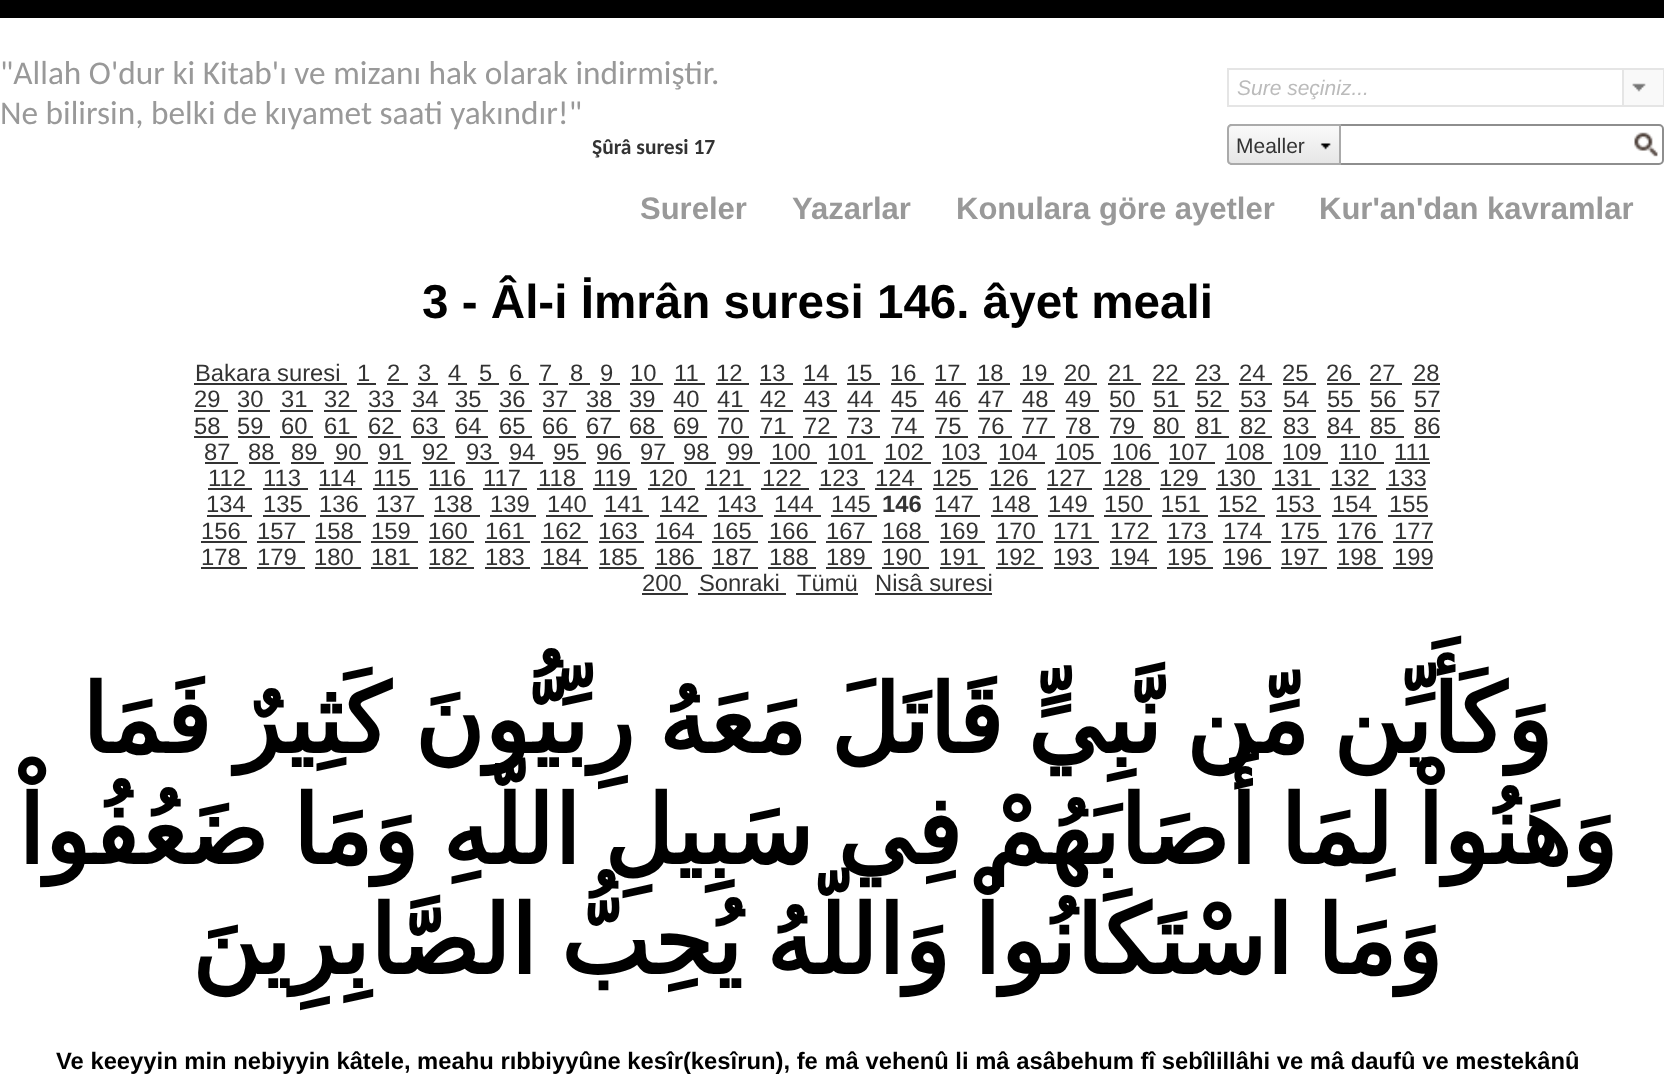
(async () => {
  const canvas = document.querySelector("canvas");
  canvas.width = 1664;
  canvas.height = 1088;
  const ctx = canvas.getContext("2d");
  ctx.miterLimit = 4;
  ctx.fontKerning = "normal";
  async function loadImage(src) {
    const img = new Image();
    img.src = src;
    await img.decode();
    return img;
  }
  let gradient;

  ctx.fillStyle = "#ffffff";
  ctx.fillRect(0, 0, 1664, 1088);
  for (const [x, y, w, h, color] of [
    [0, 0, 1664, 18, "#000000"],
    [1622, 68, 42, 2, "#e5e5e5"],
    [1663, 68, 1, 39, "#e5e5e5"],
    [1622, 105, 42, 2, "#e5e5e5"],
    [1622, 68, 2, 39, "#e5e5e5"],
    [1227, 68, 397, 2, "#e5e5e5"],
    [1227, 105, 397, 2, "#e5e5e5"],
    [1227, 68, 2, 39, "#e5e5e5"],
    [1624, 70, 39, 35, "#f9f9f9"],
  ]) {
    ctx.fillStyle = color;
    ctx.fillRect(x, y, w, h);
  }
  ctx.drawImage(await loadImage("img/1.png"), 1632, 83, 14, 9);
  ctx.beginPath();
  ctx.roundRect(1228, 125, 435, 39, 4);
  ctx.strokeStyle = "#8e8e8e";
  ctx.lineWidth = 2;
  ctx.stroke();
  ctx.save();
  ctx.beginPath();
  ctx.roundRect(1227, 124, 114, 41, [5, 0, 0, 5]);
  ctx.clip();
  gradient = ctx.createLinearGradient(1284, 126, 1284, 163);
  gradient.addColorStop(0, "#fafafa");
  gradient.addColorStop(1, "#e6e6e6");
  ctx.fillStyle = gradient;
  ctx.fillRect(1227, 126, 112, 37);
  ctx.restore();
  ctx.beginPath();
  ctx.roundRect(1228, 125, 112, 39, [4, 0, 0, 4]);
  ctx.strokeStyle = "#aaaaaa";
  ctx.stroke();
  ctx.drawImage(await loadImage("img/2.png"), 1320, 143, 11, 7);
  ctx.drawImage(await loadImage("img/3.png"), 1634, 132, 24, 25);
  for (const [x, y, w, h, color] of [
    [194, 383, 153, 2, "#333333"],
    [357, 383, 19, 2, "#333333"],
    [387, 383, 21, 2, "#333333"],
    [418, 383, 20, 2, "#333333"],
    [448, 383, 19, 2, "#333333"],
    [478, 383, 21, 2, "#333333"],
    [509, 383, 20, 2, "#333333"],
    [539, 383, 19, 2, "#333333"],
    [569, 383, 21, 2, "#333333"],
    [600, 383, 20, 2, "#333333"],
    [630, 383, 33, 2, "#333333"],
    [674, 383, 31, 2, "#333333"],
    [716, 383, 33, 2, "#333333"],
    [760, 383, 33, 2, "#333333"],
    [803, 383, 34, 2, "#333333"],
    [847, 383, 33, 2, "#333333"],
    [891, 383, 33, 2, "#333333"],
    [935, 383, 31, 2, "#333333"],
    [977, 383, 33, 2, "#333333"],
    [1020, 383, 34, 2, "#333333"],
    [1064, 383, 33, 2, "#333333"],
    [1108, 383, 33, 2, "#333333"],
    [1152, 383, 33, 2, "#333333"],
    [1195, 383, 34, 2, "#333333"],
    [1239, 383, 33, 2, "#333333"],
    [1283, 383, 33, 2, "#333333"],
    [1327, 383, 33, 2, "#333333"],
    [1370, 383, 32, 2, "#333333"],
    [1412, 383, 28, 2, "#333333"],
    [194, 410, 34, 2, "#333333"],
    [238, 410, 32, 2, "#333333"],
    [280, 410, 33, 2, "#333333"],
    [324, 410, 33, 2, "#333333"],
    [368, 410, 33, 2, "#333333"],
    [411, 410, 34, 2, "#333333"],
    [455, 410, 33, 2, "#333333"],
    [499, 410, 33, 2, "#333333"],
    [543, 410, 33, 2, "#333333"],
    [586, 410, 34, 2, "#333333"],
    [630, 410, 33, 2, "#333333"],
    [674, 410, 33, 2, "#333333"],
    [718, 410, 31, 2, "#333333"],
    [760, 410, 33, 2, "#333333"],
    [803, 410, 34, 2, "#333333"],
    [847, 410, 33, 2, "#333333"],
    [891, 410, 33, 2, "#333333"],
    [935, 410, 33, 2, "#333333"],
    [978, 410, 34, 2, "#333333"],
    [1022, 410, 33, 2, "#333333"],
    [1066, 410, 33, 2, "#333333"],
    [1110, 410, 33, 2, "#333333"],
    [1153, 410, 32, 2, "#333333"],
    [1195, 410, 34, 2, "#333333"],
    [1239, 410, 33, 2, "#333333"],
    [1283, 410, 33, 2, "#333333"],
    [1327, 410, 33, 2, "#333333"],
    [1370, 410, 34, 2, "#333333"],
    [1414, 410, 26, 2, "#333333"],
    [194, 436, 34, 2, "#333333"],
    [238, 436, 32, 2, "#333333"],
    [280, 436, 33, 2, "#333333"],
    [324, 436, 33, 2, "#333333"],
    [368, 436, 33, 2, "#333333"],
    [411, 436, 34, 2, "#333333"],
    [455, 436, 33, 2, "#333333"],
    [499, 436, 33, 2, "#333333"],
    [543, 436, 33, 2, "#333333"],
    [586, 436, 34, 2, "#333333"],
    [630, 436, 33, 2, "#333333"],
    [674, 436, 33, 2, "#333333"],
    [718, 436, 31, 2, "#333333"],
    [760, 436, 33, 2, "#333333"],
    [803, 436, 34, 2, "#333333"],
    [847, 436, 33, 2, "#333333"],
    [891, 436, 33, 2, "#333333"],
    [935, 436, 33, 2, "#333333"],
    [978, 436, 34, 2, "#333333"],
    [1022, 436, 33, 2, "#333333"],
    [1066, 436, 33, 2, "#333333"],
    [1110, 436, 33, 2, "#333333"],
    [1153, 436, 32, 2, "#333333"],
    [1195, 436, 34, 2, "#333333"],
    [1239, 436, 33, 2, "#333333"],
    [1283, 436, 33, 2, "#333333"],
    [1327, 436, 33, 2, "#333333"],
    [1370, 436, 34, 2, "#333333"],
    [1414, 436, 26, 2, "#333333"],
    [205, 462, 33, 2, "#333333"],
    [249, 462, 31, 2, "#333333"],
    [291, 462, 33, 2, "#333333"],
    [334, 462, 34, 2, "#333333"],
    [378, 462, 33, 2, "#333333"],
    [422, 462, 33, 2, "#333333"],
    [466, 462, 33, 2, "#333333"],
    [509, 462, 34, 2, "#333333"],
    [553, 462, 33, 2, "#333333"],
    [597, 462, 33, 2, "#333333"],
    [641, 462, 33, 2, "#333333"],
    [684, 462, 32, 2, "#333333"],
    [726, 462, 34, 2, "#333333"],
    [770, 462, 47, 2, "#333333"],
    [828, 462, 45, 2, "#333333"],
    [884, 462, 47, 2, "#333333"],
    [942, 462, 45, 2, "#333333"],
    [998, 462, 47, 2, "#333333"],
    [1055, 462, 46, 2, "#333333"],
    [1111, 462, 48, 2, "#333333"],
    [1169, 462, 46, 2, "#333333"],
    [1225, 462, 47, 2, "#333333"],
    [1283, 462, 45, 2, "#333333"],
    [1339, 462, 45, 2, "#333333"],
    [1395, 462, 35, 2, "#333333"],
    [208, 488, 44, 2, "#333333"],
    [263, 488, 45, 2, "#333333"],
    [319, 488, 43, 2, "#333333"],
    [373, 488, 45, 2, "#333333"],
    [429, 488, 44, 2, "#333333"],
    [483, 488, 44, 2, "#333333"],
    [537, 488, 46, 2, "#333333"],
    [593, 488, 44, 2, "#333333"],
    [648, 488, 47, 2, "#333333"],
    [705, 488, 46, 2, "#333333"],
    [761, 488, 48, 2, "#333333"],
    [819, 488, 46, 2, "#333333"],
    [875, 488, 47, 2, "#333333"],
    [933, 488, 45, 2, "#333333"],
    [989, 488, 47, 2, "#333333"],
    [1047, 488, 45, 2, "#333333"],
    [1103, 488, 47, 2, "#333333"],
    [1160, 488, 46, 2, "#333333"],
    [1216, 488, 46, 2, "#333333"],
    [1272, 488, 48, 2, "#333333"],
    [1330, 488, 46, 2, "#333333"],
    [1386, 488, 40, 2, "#333333"],
    [207, 515, 45, 2, "#333333"],
    [263, 515, 47, 2, "#333333"],
    [320, 515, 46, 2, "#333333"],
    [376, 515, 48, 2, "#333333"],
    [434, 515, 46, 2, "#333333"],
    [490, 515, 46, 2, "#333333"],
    [546, 515, 47, 2, "#333333"],
    [604, 515, 45, 2, "#333333"],
    [660, 515, 47, 2, "#333333"],
    [718, 515, 45, 2, "#333333"],
    [774, 515, 47, 2, "#333333"],
    [831, 515, 46, 2, "#333333"],
    [935, 515, 45, 2, "#333333"],
    [991, 515, 47, 2, "#333333"],
    [1048, 515, 46, 2, "#333333"],
    [1104, 515, 48, 2, "#333333"],
    [1162, 515, 46, 2, "#333333"],
    [1218, 515, 47, 2, "#333333"],
    [1276, 515, 45, 2, "#333333"],
    [1332, 515, 45, 2, "#333333"],
    [1388, 515, 40, 2, "#333333"],
    [201, 541, 46, 2, "#333333"],
    [257, 541, 48, 2, "#333333"],
    [315, 541, 46, 2, "#333333"],
    [371, 541, 47, 2, "#333333"],
    [429, 541, 45, 2, "#333333"],
    [485, 541, 45, 2, "#333333"],
    [541, 541, 47, 2, "#333333"],
    [599, 541, 45, 2, "#333333"],
    [655, 541, 47, 2, "#333333"],
    [712, 541, 46, 2, "#333333"],
    [768, 541, 48, 2, "#333333"],
    [826, 541, 46, 2, "#333333"],
    [882, 541, 47, 2, "#333333"],
    [940, 541, 45, 2, "#333333"],
    [996, 541, 47, 2, "#333333"],
    [1054, 541, 45, 2, "#333333"],
    [1110, 541, 47, 2, "#333333"],
    [1167, 541, 46, 2, "#333333"],
    [1223, 541, 48, 2, "#333333"],
    [1281, 541, 46, 2, "#333333"],
    [1337, 541, 46, 2, "#333333"],
    [1393, 541, 40, 2, "#333333"],
    [201, 567, 46, 2, "#333333"],
    [257, 567, 48, 2, "#333333"],
    [315, 567, 46, 2, "#333333"],
    [371, 567, 47, 2, "#333333"],
    [429, 567, 45, 2, "#333333"],
    [485, 567, 45, 2, "#333333"],
    [541, 567, 47, 2, "#333333"],
    [599, 567, 45, 2, "#333333"],
    [655, 567, 47, 2, "#333333"],
    [712, 567, 46, 2, "#333333"],
    [768, 567, 48, 2, "#333333"],
    [826, 567, 46, 2, "#333333"],
    [882, 567, 47, 2, "#333333"],
    [940, 567, 45, 2, "#333333"],
    [996, 567, 47, 2, "#333333"],
    [1054, 567, 45, 2, "#333333"],
    [1110, 567, 47, 2, "#333333"],
    [1167, 567, 46, 2, "#333333"],
    [1223, 567, 48, 2, "#333333"],
    [1281, 567, 46, 2, "#333333"],
    [1337, 567, 46, 2, "#333333"],
    [1393, 567, 40, 2, "#333333"],
    [642, 593, 46, 2, "#333333"],
    [698, 593, 88, 2, "#333333"],
    [796, 593, 62, 2, "#333333"],
    [875, 593, 117, 2, "#333333"],
  ]) {
    ctx.fillStyle = color;
    ctx.fillRect(x, y, w, h);
  }
  ctx.font = "33.3px Carlito";
  ctx.fillStyle = "#999999";
  ctx.fillText("\"Allah O'dur ki Kitab'ı ve mizanı hak olarak indirmiştir.", 0, 84);
  ctx.fillText("Ne bilirsin, belki de kıyamet saati yakındır!\"", 0, 124);
  ctx.font = "bold 21.5px Carlito";
  ctx.fillStyle = "#333333";
  ctx.fillText("Şûrâ suresi 17", 592, 154);
  ctx.font = "italic 21px Liberation Sans";
  ctx.fillStyle = "#bbbbbb";
  ctx.fillText("Sure seçiniz...", 1237, 95);
  ctx.font = "21px Liberation Sans";
  ctx.fillStyle = "#333333";
  ctx.fillText("Mealler", 1236, 153);
  ctx.font = "bold 31px Liberation Sans";
  ctx.fillStyle = "#999999";
  for (const [text, x, y] of [
    ["Sureler", 640, 219],
    ["Yazarlar", 792, 219],
    ["Konulara göre ayetler", 956, 219],
    ["Kur'an'dan kavramlar", 1319, 219],
  ]) {
    ctx.fillText(text, x, y);
  }
  ctx.font = "bold 47.6px Liberation Sans";
  ctx.fillStyle = "#000000";
  ctx.fillText("3 - Âl-i İmrân suresi 146. âyet meali", 422, 318);
  ctx.font = "23.8px Liberation Sans";
  ctx.fillStyle = "#333333";
  for (const [text, x, y] of [
    ["Bakara suresi", 195, 381],
    ["1", 357, 381],
    ["2", 387, 381],
    ["3", 418, 381],
    ["4", 448, 381],
    ["5", 479, 381],
    ["6", 509, 381],
    ["7", 539, 381],
    ["8", 570, 381],
    ["9", 600, 381],
    ["10", 630, 381],
    ["11", 674, 381],
    ["12", 716, 381],
    ["13", 759, 381],
    ["14", 803, 381],
    ["15", 846, 381],
    ["16", 890, 381],
    ["17", 934, 381],
    ["18", 977, 381],
    ["19", 1021, 381],
    ["20", 1064, 381],
    ["21", 1108, 381],
    ["22", 1152, 381],
    ["23", 1195, 381],
    ["24", 1239, 381],
    ["25", 1282, 381],
    ["26", 1326, 381],
    ["27", 1369, 381],
    ["28", 1413, 381],
    ["29", 194, 407],
    ["30", 237, 407],
    ["31", 281, 407],
    ["32", 324, 407],
    ["33", 368, 407],
    ["34", 412, 407],
    ["35", 455, 407],
    ["36", 499, 407],
    ["37", 542, 407],
    ["38", 586, 407],
    ["39", 629, 407],
    ["40", 673, 407],
    ["41", 717, 407],
    ["42", 760, 407],
    ["43", 804, 407],
    ["44", 847, 407],
    ["45", 891, 407],
    ["46", 935, 407],
    ["47", 978, 407],
    ["48", 1022, 407],
    ["49", 1065, 407],
    ["50", 1109, 407],
    ["51", 1153, 407],
    ["52", 1196, 407],
    ["53", 1240, 407],
    ["54", 1283, 407],
    ["55", 1327, 407],
    ["56", 1370, 407],
    ["57", 1414, 407],
    ["58", 194, 434],
    ["59", 237, 434],
    ["60", 281, 434],
    ["61", 324, 434],
    ["62", 368, 434],
    ["63", 412, 434],
    ["64", 455, 434],
    ["65", 499, 434],
    ["66", 542, 434],
    ["67", 586, 434],
    ["68", 629, 434],
    ["69", 673, 434],
    ["70", 717, 434],
    ["71", 760, 434],
    ["72", 804, 434],
    ["73", 847, 434],
    ["74", 891, 434],
    ["75", 935, 434],
    ["76", 978, 434],
    ["77", 1022, 434],
    ["78", 1065, 434],
    ["79", 1109, 434],
    ["80", 1153, 434],
    ["81", 1196, 434],
    ["82", 1240, 434],
    ["83", 1283, 434],
    ["84", 1327, 434],
    ["85", 1370, 434],
    ["86", 1414, 434],
    ["87", 204, 460],
    ["88", 248, 460],
    ["89", 291, 460],
    ["90", 335, 460],
    ["91", 378, 460],
    ["92", 422, 460],
    ["93", 466, 460],
    ["94", 509, 460],
    ["95", 553, 460],
    ["96", 596, 460],
    ["97", 640, 460],
    ["98", 683, 460],
    ["99", 727, 460],
    ["100", 771, 460],
    ["101", 827, 460],
    ["102", 884, 460],
    ["103", 941, 460],
    ["104", 998, 460],
    ["105", 1055, 460],
    ["106", 1112, 460],
    ["107", 1168, 460],
    ["108", 1225, 460],
    ["109", 1282, 460],
    ["110", 1339, 460],
    ["111", 1394, 460],
    ["112", 208, 486],
    ["113", 263, 486],
    ["114", 318, 486],
    ["115", 373, 486],
    ["116", 428, 486],
    ["117", 483, 486],
    ["118", 538, 486],
    ["119", 593, 486],
    ["120", 648, 486],
    ["121", 705, 486],
    ["122", 762, 486],
    ["123", 819, 486],
    ["124", 875, 486],
    ["125", 932, 486],
    ["126", 989, 486],
    ["127", 1046, 486],
    ["128", 1103, 486],
    ["129", 1159, 486],
    ["130", 1216, 486],
    ["131", 1273, 486],
    ["132", 1330, 486],
    ["133", 1387, 486],
    ["134", 206, 512],
    ["135", 263, 512],
    ["136", 319, 512],
    ["137", 376, 512],
    ["138", 433, 512],
    ["139", 490, 512],
    ["140", 547, 512],
    ["141", 604, 512],
    ["142", 660, 512],
    ["143", 717, 512],
    ["144", 774, 512],
    ["145", 831, 512],
  ]) {
    ctx.fillText(text, x, y);
  }
  ctx.font = "bold 23.8px Liberation Sans";
  ctx.fillText("146", 882, 512);
  ctx.font = "23.8px Liberation Sans";
  for (const [text, x, y] of [
    ["147", 934, 512],
    ["148", 991, 512],
    ["149", 1048, 512],
    ["150", 1104, 512],
    ["151", 1161, 512],
    ["152", 1218, 512],
    ["153", 1275, 512],
    ["154", 1332, 512],
    ["155", 1389, 512],
    ["156", 201, 539],
    ["157", 257, 539],
    ["158", 314, 539],
    ["159", 371, 539],
    ["160", 428, 539],
    ["161", 485, 539],
    ["162", 542, 539],
    ["163", 598, 539],
    ["164", 655, 539],
    ["165", 712, 539],
    ["166", 769, 539],
    ["167", 826, 539],
    ["168", 882, 539],
    ["169", 939, 539],
    ["170", 996, 539],
    ["171", 1053, 539],
    ["172", 1110, 539],
    ["173", 1167, 539],
    ["174", 1223, 539],
    ["175", 1280, 539],
    ["176", 1337, 539],
    ["177", 1394, 539],
    ["178", 201, 565],
    ["179", 257, 565],
    ["180", 314, 565],
    ["181", 371, 565],
    ["182", 428, 565],
    ["183", 485, 565],
    ["184", 542, 565],
    ["185", 598, 565],
    ["186", 655, 565],
    ["187", 712, 565],
    ["188", 769, 565],
    ["189", 826, 565],
    ["190", 882, 565],
    ["191", 939, 565],
    ["192", 996, 565],
    ["193", 1053, 565],
    ["194", 1110, 565],
    ["195", 1167, 565],
    ["196", 1223, 565],
    ["197", 1280, 565],
    ["198", 1337, 565],
    ["199", 1394, 565],
    ["200", 642, 591],
    ["Sonraki", 699, 591],
    ["Tümü", 797, 591],
    ["Nisâ suresi", 875, 591],
  ]) {
    ctx.fillText(text, x, y);
  }
  ctx.wordSpacing = "-6.5px";
  ctx.direction = "rtl";
  ctx.font = "bold 95.25px DejaVu Sans";
  ctx.fillStyle = "#000000";
  for (const [text, x, y] of [
    ["وَكَأَيِّن مِّن نَّبِيٍّ قَاتَلَ مَعَهُ رِبِّيُّونَ كَثِيرٌ فَمَا", 1552, 753],
    ["وَهَنُواْ لِمَا أَصَابَهُمْ فِي سَبِيلِ اللّهِ وَمَا ضَعُفُواْ", 1617, 864],
    ["وَمَا اسْتَكَانُواْ وَاللّهُ يُحِبُّ الصَّابِرِينَ", 1442, 974],
  ]) {
    ctx.fillText(text, x, y);
  }
  ctx.wordSpacing = "0px";
  ctx.direction = "ltr";
  ctx.font = "bold 23.8px Liberation Sans";
  ctx.fillText("Ve keeyyin min nebiyyin kâtele, meahu rıbbiyyûne kesîr(kesîrun), fe mâ vehenû li mâ asâbehum fî sebîlillâhi ve mâ daufû ve mestekânû", 56, 1069);
})();
